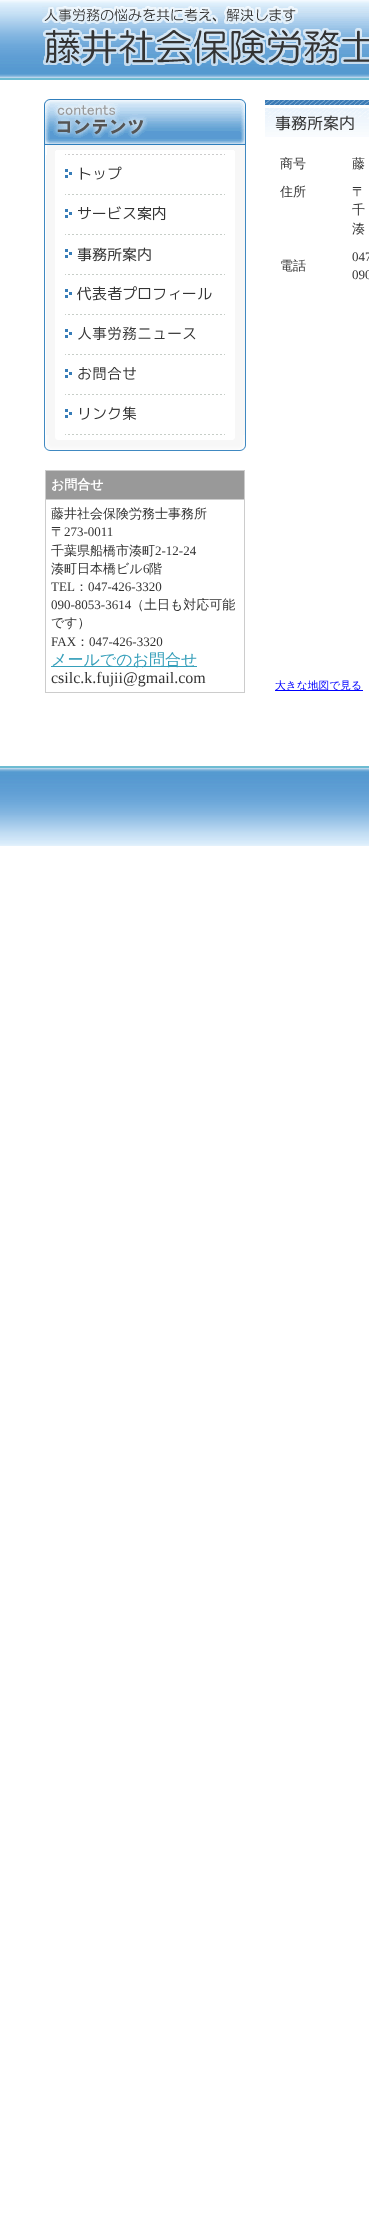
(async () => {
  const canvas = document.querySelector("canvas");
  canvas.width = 369;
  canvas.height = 2228;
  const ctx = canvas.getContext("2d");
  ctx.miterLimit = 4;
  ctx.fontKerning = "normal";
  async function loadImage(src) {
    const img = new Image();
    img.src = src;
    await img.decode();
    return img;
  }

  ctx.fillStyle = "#ffffff";
  ctx.fillRect(0, 0, 369, 2228);
  ctx.drawImage(await loadImage("img/1.png"), 0, 766, 369, 80);
  ctx.drawImage(await loadImage("img/2.png"), 0, 0, 369, 80);
  ctx.drawImage(await loadImage("img/3.png"), 42, 6, 327, 60);
  ctx.drawImage(await loadImage("img/4.png"), 44, 435, 202, 16);
  ctx.drawImage(await loadImage("img/5.png"), 44, 99, 202, 56);
  ctx.drawImage(await loadImage("img/6.png"), 44, 155, 202, 40);
  ctx.drawImage(await loadImage("img/7.png"), 44, 195, 202, 40);
  ctx.drawImage(await loadImage("img/8.png"), 44, 235, 202, 40);
  ctx.drawImage(await loadImage("img/9.png"), 44, 275, 202, 40);
  ctx.drawImage(await loadImage("img/10.png"), 44, 315, 202, 40);
  ctx.drawImage(await loadImage("img/11.png"), 44, 355, 202, 40);
  ctx.drawImage(await loadImage("img/12.png"), 44, 395, 202, 40);
  for (const [x, y, w, h, color] of [
    [46, 471, 198, 28, "#999999"],
    [45, 470, 200, 1, "#cccccc"],
    [45, 499, 200, 1, "#cccccc"],
    [244, 499, 1, 194, "#cccccc"],
    [244, 470, 1, 30, "#cccccc"],
    [45, 692, 200, 1, "#cccccc"],
    [45, 499, 1, 194, "#cccccc"],
    [45, 470, 1, 30, "#cccccc"],
    [51, 666, 146, 1, "#369fba"],
  ]) {
    ctx.fillStyle = color;
    ctx.fillRect(x, y, w, h);
  }
  ctx.drawImage(await loadImage("img/13.png"), 265, 100, 104, 37);
  ctx.fillStyle = "#0000ff";
  ctx.fillRect(275, 690, 88, 1);
  ctx.font = "bold 13px WenQuanYi Zen Hei";
  ctx.fillStyle = "#ffffff";
  ctx.fillText("お問合せ", 51, 489);
  ctx.font = "500 13px WenQuanYi Zen Hei";
  ctx.fillStyle = "#333333";
  ctx.fillText("藤井社会保険労務士事務所", 51, 518);
  ctx.fillText("〒", 51, 536);
  ctx.font = "13px Liberation Serif";
  ctx.fillText("273-0011", 64, 536);
  ctx.font = "500 13px WenQuanYi Zen Hei";
  ctx.fillText("千葉県船橋市湊町", 51, 555);
  ctx.font = "13px Liberation Serif";
  ctx.fillText("2-12-24", 155, 555);
  ctx.font = "500 13px WenQuanYi Zen Hei";
  ctx.fillText("湊町日本橋ビル", 51, 573);
  ctx.font = "13px Liberation Serif";
  ctx.fillText("6", 143, 573);
  ctx.font = "500 13px WenQuanYi Zen Hei";
  ctx.fillText("階", 149, 573);
  ctx.font = "13px Liberation Serif";
  ctx.fillText("TEL", 51, 591);
  ctx.font = "500 13px WenQuanYi Zen Hei";
  ctx.fillText("：", 75, 591);
  ctx.font = "13px Liberation Serif";
  ctx.fillText("047-426-3320", 88, 591);
  ctx.fillText("090-8053-3614", 51, 609);
  ctx.font = "500 13px WenQuanYi Zen Hei";
  ctx.fillText("（土日も対応可能", 131, 609);
  ctx.fillText("です）", 51, 627);
  ctx.font = "13px Liberation Serif";
  ctx.fillText("FAX", 51, 646);
  ctx.font = "500 13px WenQuanYi Zen Hei";
  ctx.fillText("：", 76, 646);
  ctx.font = "13px Liberation Serif";
  ctx.fillText("047-426-3320", 89, 646);
  ctx.font = "500 16px WenQuanYi Zen Hei";
  ctx.fillStyle = "#369fba";
  ctx.fillText("メールでのお問合せ", 51, 665);
  ctx.font = "16px Liberation Serif";
  ctx.fillStyle = "#333333";
  ctx.fillText("csilc.k.fujii@gmail.com", 51, 683);
  ctx.font = "500 13px WenQuanYi Zen Hei";
  for (const [text, x, y] of [
    ["商号", 280, 168],
    ["藤", 352, 168],
    ["住所", 280, 196],
    ["〒", 352, 196],
    ["千", 352, 214],
    ["湊", 352, 233],
    ["電話", 280, 270],
  ]) {
    ctx.fillText(text, x, y);
  }
  ctx.font = "13px Liberation Serif";
  ctx.fillText("047", 352, 261);
  ctx.fillText("090", 352, 279);
  ctx.font = "500 10.75px WenQuanYi Zen Hei";
  ctx.fillStyle = "#0000ff";
  ctx.fillText("大きな地図で見る", 275, 689);
})();
